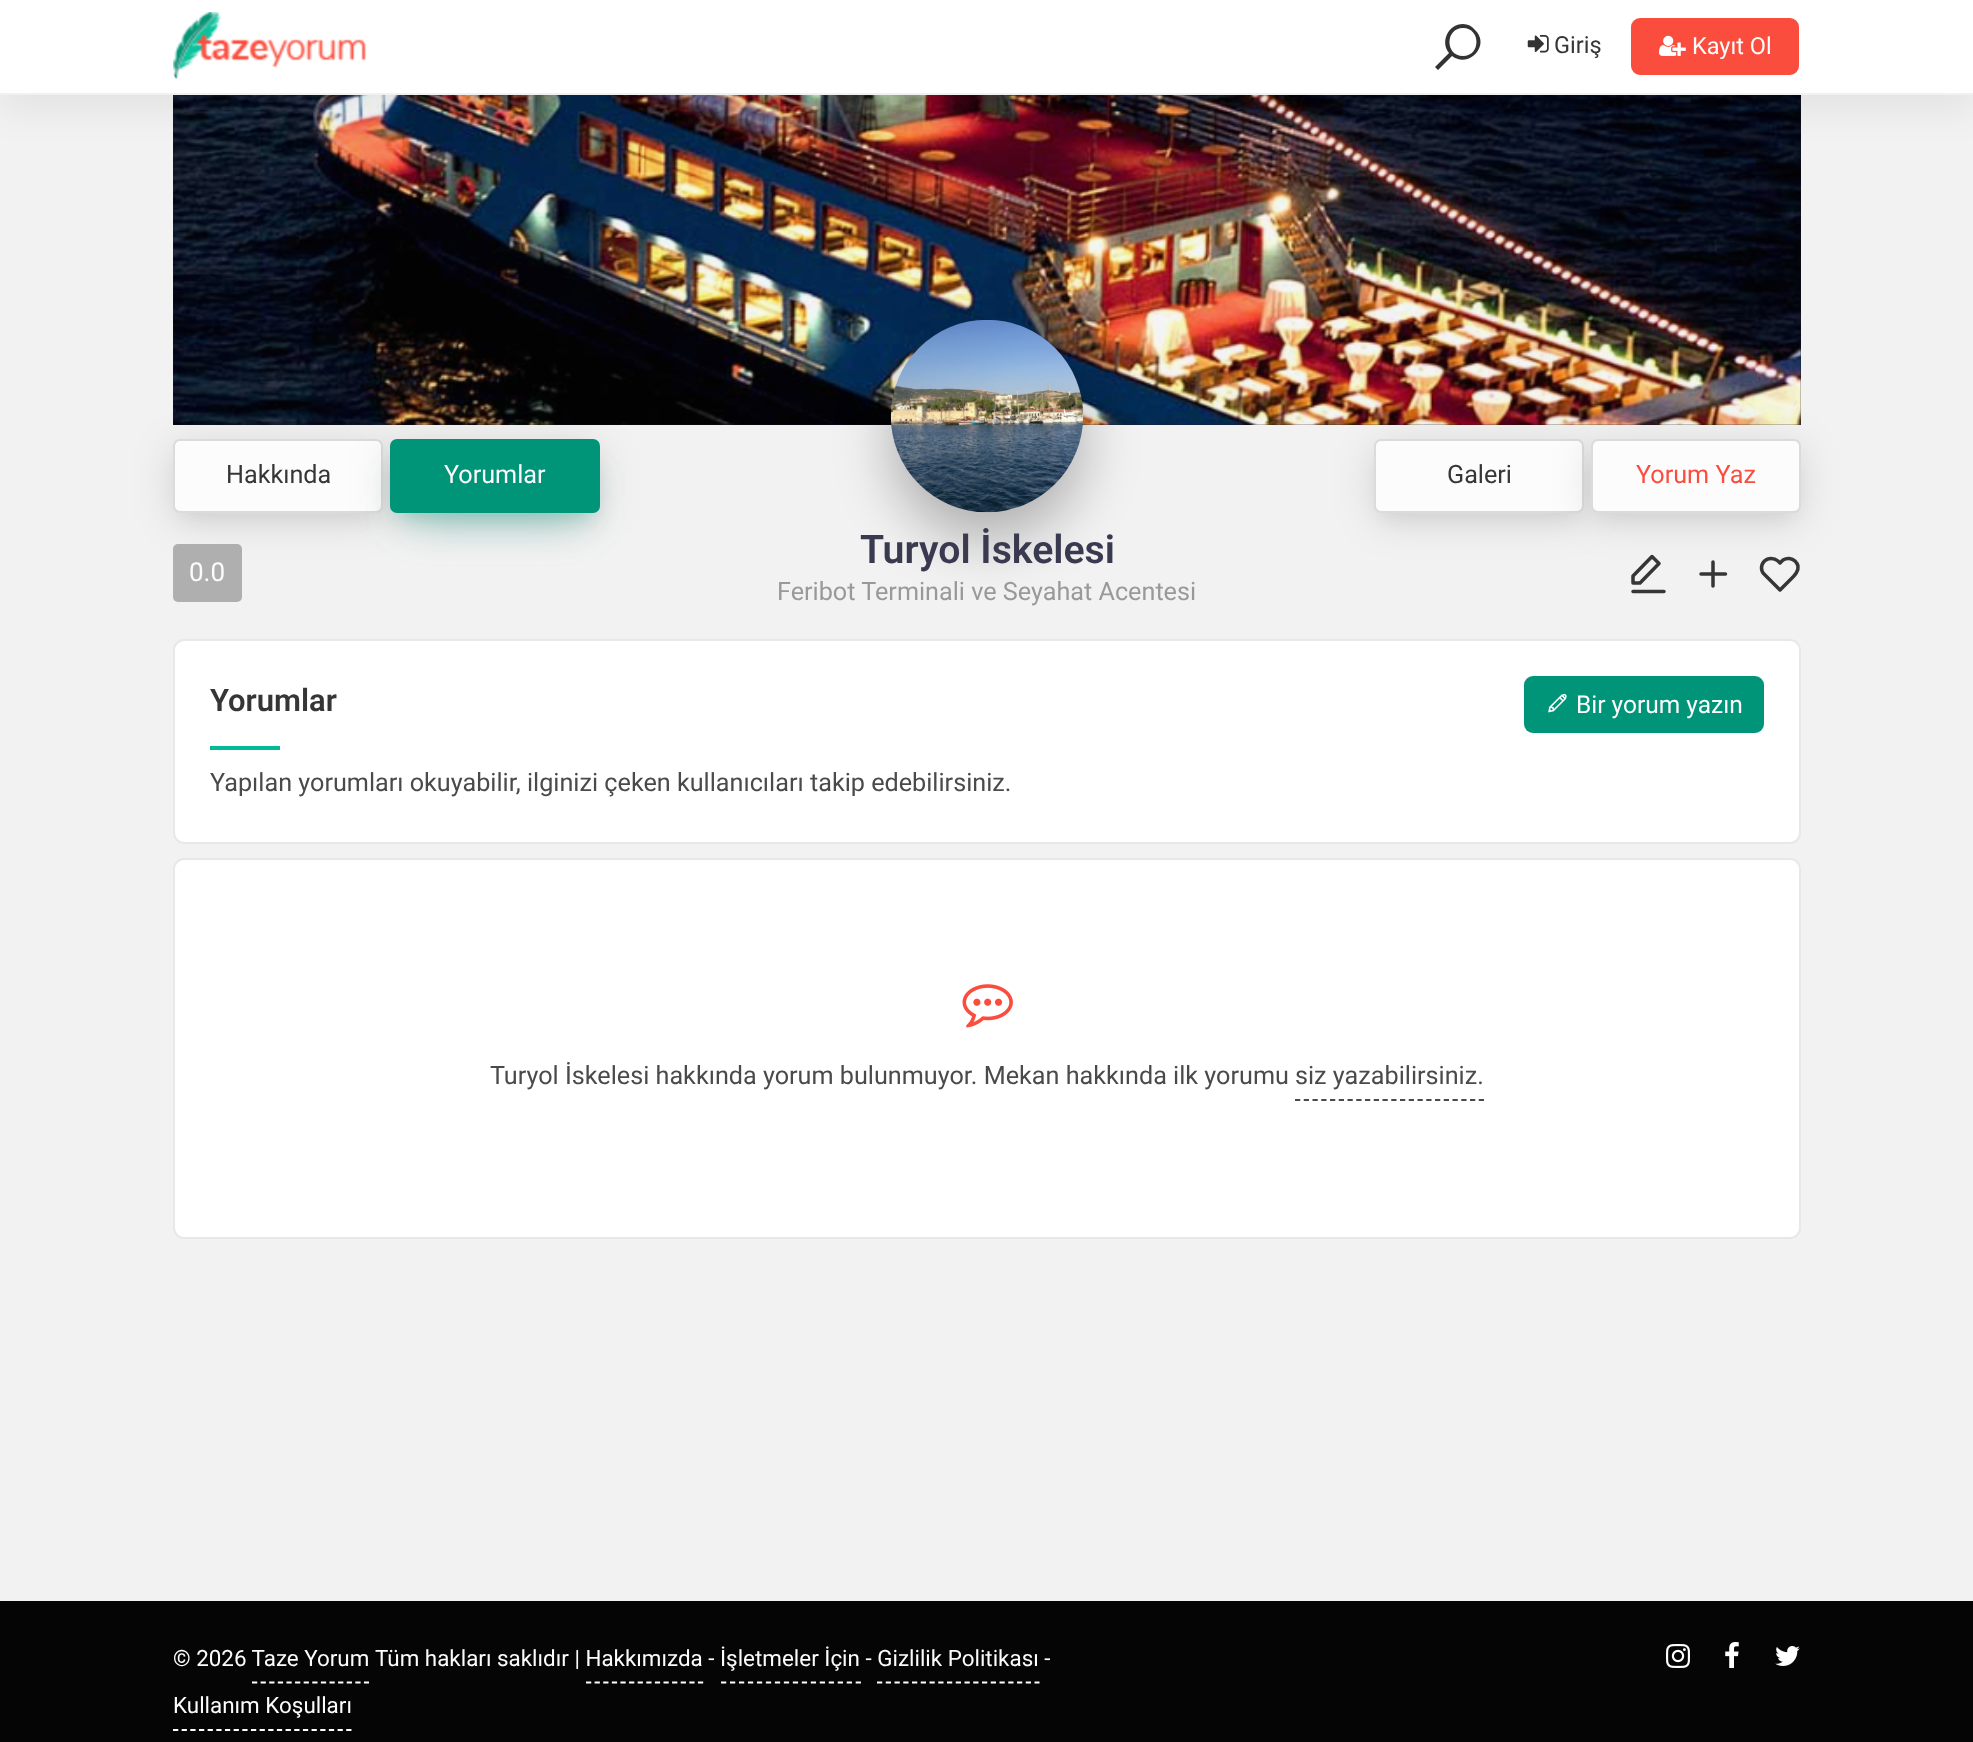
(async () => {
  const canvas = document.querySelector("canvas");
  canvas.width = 1973;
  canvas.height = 1742;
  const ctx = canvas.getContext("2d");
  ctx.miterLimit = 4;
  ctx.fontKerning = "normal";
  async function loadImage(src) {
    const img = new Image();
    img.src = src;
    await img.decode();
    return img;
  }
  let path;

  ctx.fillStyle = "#f2f2f2";
  ctx.fillRect(0, 0, 1973, 1742);
  ctx.fillStyle = "#1f1f1e";
  ctx.fillRect(173, 95, 1628, 330);
  ctx.drawImage(await loadImage("img/4.png"), 173, 95, 1628, 330);
  ctx.fillStyle = "rgba(0, 0, 0, 0.12)";
  ctx.filter = "blur(20px)";
  ctx.beginPath();
  ctx.roundRect(173, 446, 210, 74, 7);
  ctx.fill();
  ctx.filter = "none";
  ctx.fillStyle = "rgba(167, 167, 167, 0.2)";
  ctx.filter = "blur(9px)";
  ctx.beginPath();
  ctx.rect(182, 462, 193, 56);
  ctx.fill();
  ctx.filter = "none";
  ctx.fillStyle = "#fcfcfc";
  ctx.beginPath();
  ctx.roundRect(174, 440, 208, 72, 6);
  ctx.fill();
  ctx.strokeStyle = "#dbdbdb";
  ctx.lineWidth = 2;
  ctx.stroke();
  ctx.fillStyle = "rgba(0, 0, 0, 0.12)";
  ctx.filter = "blur(20px)";
  ctx.beginPath();
  ctx.roundRect(390, 446, 210, 74, 7);
  ctx.fill();
  ctx.filter = "none";
  ctx.fillStyle = "rgba(0, 148, 121, 0.42)";
  ctx.filter = "blur(23px)";
  ctx.beginPath();
  ctx.rect(411, 485, 168, 31);
  ctx.fill();
  ctx.filter = "none";
  ctx.fillStyle = "rgba(0, 0, 0, 0.12)";
  ctx.filter = "blur(20px)";
  ctx.beginPath();
  ctx.roundRect(1374, 446, 210, 74, 7);
  ctx.fill();
  ctx.filter = "none";
  ctx.fillStyle = "rgba(167, 167, 167, 0.2)";
  ctx.filter = "blur(9px)";
  ctx.beginPath();
  ctx.rect(1383, 462, 192, 56);
  ctx.fill();
  ctx.filter = "none";
  ctx.fillStyle = "#fcfcfc";
  ctx.beginPath();
  ctx.roundRect(1375, 440, 208, 72, 6);
  ctx.fill();
  ctx.stroke();
  ctx.fillStyle = "rgba(0, 0, 0, 0.12)";
  ctx.filter = "blur(20px)";
  ctx.beginPath();
  ctx.roundRect(1591, 446, 210, 74, 7);
  ctx.fill();
  ctx.filter = "none";
  ctx.fillStyle = "rgba(57, 58, 79, 0.04)";
  ctx.fillRect(173, 95, 1628, 330);
  ctx.fillStyle = "rgba(0, 0, 0, 0.06)";
  ctx.filter = "blur(17.5px)";
  ctx.beginPath();
  ctx.rect(0, 18, 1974, 94);
  ctx.fill();
  ctx.filter = "none";
  ctx.fillStyle = "#ffffff";
  ctx.fillRect(0, 0, 1973, 93);
  ctx.fillStyle = "#f1f1f1";
  ctx.fillRect(0, 93, 1973, 2);
  ctx.drawImage(await loadImage("img/1.png"), 173, 12, 194, 68);
  ctx.fillStyle = "#333333";
  path = new Path2D("M1463 24C1448 24 1440 42 1449 53L1435 67L1438 70L1452 56C1469 69 1491 45 1475 30C1472 26 1468 24 1463 24ZM1463 28C1481 28 1481 56 1463 56C1445 56 1445 28 1463 28Z");
  ctx.fill(path);
  ctx.drawImage(await loadImage("img/2.png"), 1527, 35, 22, 18);
  ctx.fillStyle = "#fb4d3d";
  ctx.beginPath();
  ctx.roundRect(1630, 17, 170, 59, 10);
  ctx.fill();
  ctx.strokeStyle = "#ffffff";
  ctx.stroke();
  ctx.drawImage(await loadImage("img/3.png"), 1659, 35, 27, 21);
  ctx.fillStyle = "rgba(0, 0, 0, 0.28)";
  ctx.filter = "blur(28px)";
  ctx.beginPath();
  ctx.roundRect(891, 347, 192, 192, 96);
  ctx.fill();
  ctx.filter = "none";
  ctx.drawImage(await loadImage("img/5.png"), 890, 319, 194, 194);
  ctx.fillStyle = "rgba(0, 148, 121, 0.2)";
  ctx.filter = "blur(9px)";
  ctx.beginPath();
  ctx.rect(399, 462, 193, 56);
  ctx.fill();
  ctx.filter = "none";
  ctx.fillStyle = "#009479";
  ctx.beginPath();
  ctx.roundRect(391, 440, 208, 72, 6);
  ctx.fill();
  ctx.strokeStyle = "#009479";
  ctx.stroke();
  ctx.fillStyle = "rgba(167, 167, 167, 0.2)";
  ctx.filter = "blur(9px)";
  ctx.beginPath();
  ctx.rect(1600, 462, 192, 56);
  ctx.fill();
  ctx.filter = "none";
  ctx.fillStyle = "#fcfcfc";
  ctx.beginPath();
  ctx.roundRect(1592, 440, 208, 72, 6);
  ctx.fill();
  ctx.strokeStyle = "#dbdbdb";
  ctx.stroke();
  ctx.fillStyle = "#afafaf";
  ctx.beginPath();
  ctx.roundRect(173, 544, 69, 58, 5);
  ctx.fill();
  path = new Path2D("M1652 556.5L1659 563.5L1640 583H1633V576ZM1633 591.5H1664");
  ctx.strokeStyle = "#363636";
  ctx.lineWidth = 3.5;
  ctx.lineCap = "round";
  ctx.lineJoin = "round";
  ctx.stroke(path);
  path = new Path2D("M1713 562V586M1701 574H1725.5");
  ctx.stroke(path);
  path = new Path2D("M1795 561C1792 558 1787 557.5 1783 560L1780 563L1778 561C1774 557.5 1768 557.5 1764.5 561C1760.5 565 1760.5 571 1764.5 574.5L1780 590L1789 581C1793 577 1799 572.5 1798 566C1797.5 564 1796.5 562.5 1795 561Z");
  ctx.stroke(path);
  ctx.fillStyle = "#ffffff";
  ctx.beginPath();
  ctx.roundRect(174, 640, 1626, 203, 10);
  ctx.fill();
  ctx.strokeStyle = "#e8e8e8";
  ctx.lineWidth = 2;
  ctx.lineJoin = "miter";
  ctx.stroke();
  ctx.fillStyle = "#009479";
  ctx.beginPath();
  ctx.roundRect(1524, 676, 240, 57, 9);
  ctx.fill();
  ctx.drawImage(await loadImage("img/6.png"), 1548, 693, 19, 20);
  ctx.fillStyle = "#02ba95";
  ctx.fillRect(210, 746, 70, 4);
  ctx.fillStyle = "#ffffff";
  ctx.beginPath();
  ctx.roundRect(174, 859, 1626, 379, 10);
  ctx.fill();
  ctx.stroke();
  ctx.drawImage(await loadImage("img/7.png"), 962, 984, 51, 44);
  path = new Path2D("M1295 1100H1484");
  ctx.strokeStyle = "#4a4a4a";
  ctx.lineWidth = 1.8;
  ctx.lineCap = "butt";
  ctx.setLineDash([5.25, 3.5]);
  ctx.stroke(path);
  ctx.fillStyle = "#050506";
  ctx.fillRect(0, 1601, 1973, 141);
  path = new Path2D("M252 1682.5H369");
  ctx.strokeStyle = "#ffffff";
  ctx.setLineDash([5.25, 3.36]);
  ctx.stroke(path);
  path = new Path2D("M586 1682.5H703.5");
  ctx.stroke(path);
  path = new Path2D("M721 1682.5H861");
  ctx.setLineDash([5.25, 3.73]);
  ctx.stroke(path);
  path = new Path2D("M877 1682.5H1039.5");
  ctx.setLineDash([5.25, 3.5]);
  ctx.stroke(path);
  path = new Path2D("M173 1730H352");
  ctx.setLineDash([5.25, 3.41]);
  ctx.stroke(path);
  ctx.drawImage(await loadImage("img/8.png"), 1666, 1644, 24, 24);
  ctx.drawImage(await loadImage("img/9.png"), 1725, 1642, 14, 26);
  ctx.drawImage(await loadImage("img/10.png"), 1775, 1646, 25, 20);
  ctx.font = "23.5px Roboto";
  ctx.fillStyle = "#363636";
  ctx.fillText("Giriş", 1554, 53);
  ctx.fillStyle = "#fcfcfc";
  ctx.fillText("Kayıt Ol", 1692, 54);
  ctx.font = "25.2px Roboto";
  ctx.fillStyle = "#363636";
  ctx.fillText("Hakkında", 226, 483);
  ctx.fillStyle = "#fcfcfc";
  ctx.fillText("Yorumlar", 444, 483);
  ctx.fillStyle = "#363636";
  ctx.fillText("Galeri", 1447, 483);
  ctx.fillStyle = "#fb4d3d";
  ctx.fillText("Yorum Yaz", 1636, 483);
  ctx.font = "26px Roboto";
  ctx.fillStyle = "#fcfcfc";
  ctx.fillText("0.0", 189, 581);
  ctx.font = "600 39.25px Roboto";
  ctx.fillStyle = "#393a4f";
  ctx.fillText("Turyol İskelesi", 860, 563);
  ctx.font = "25.2px Roboto";
  ctx.fillStyle = "#999999";
  ctx.fillText("Feribot Terminali ve Seyahat Acentesi", 777, 600);
  ctx.font = "600 31px Roboto";
  ctx.fillStyle = "#363636";
  ctx.fillText("Yorumlar", 210, 711);
  ctx.font = "24.5px Roboto";
  ctx.fillStyle = "#fcfcfc";
  ctx.fillText("Bir yorum yazın", 1576, 713);
  ctx.font = "25.2px Roboto";
  ctx.fillStyle = "#4a4a4a";
  for (const [text, x, y] of [
    ["Yapılan yorumları okuyabilir, ilginizi çeken kullanıcıları takip edebilirsiniz.", 210, 791],
    ["Turyol İskelesi hakkında yorum bulunmuyor. Mekan hakkında ilk yorumu", 490, 1084],
    ["siz yazabilirsiniz.", 1295, 1084],
  ]) {
    ctx.fillText(text, x, y);
  }
  ctx.font = "22.4px Roboto";
  ctx.fillStyle = "#fcfcfc";
  for (const [text, x, y] of [
    ["© 2026 Taze Yorum", 173, 1666],
    ["Tüm hakları saklıdır | Hakkımızda - İşletmeler İçin - Gizlilik Politikası -", 375, 1666],
    ["Kullanım Koşulları", 173, 1713],
  ]) {
    ctx.fillText(text, x, y);
  }
})();
